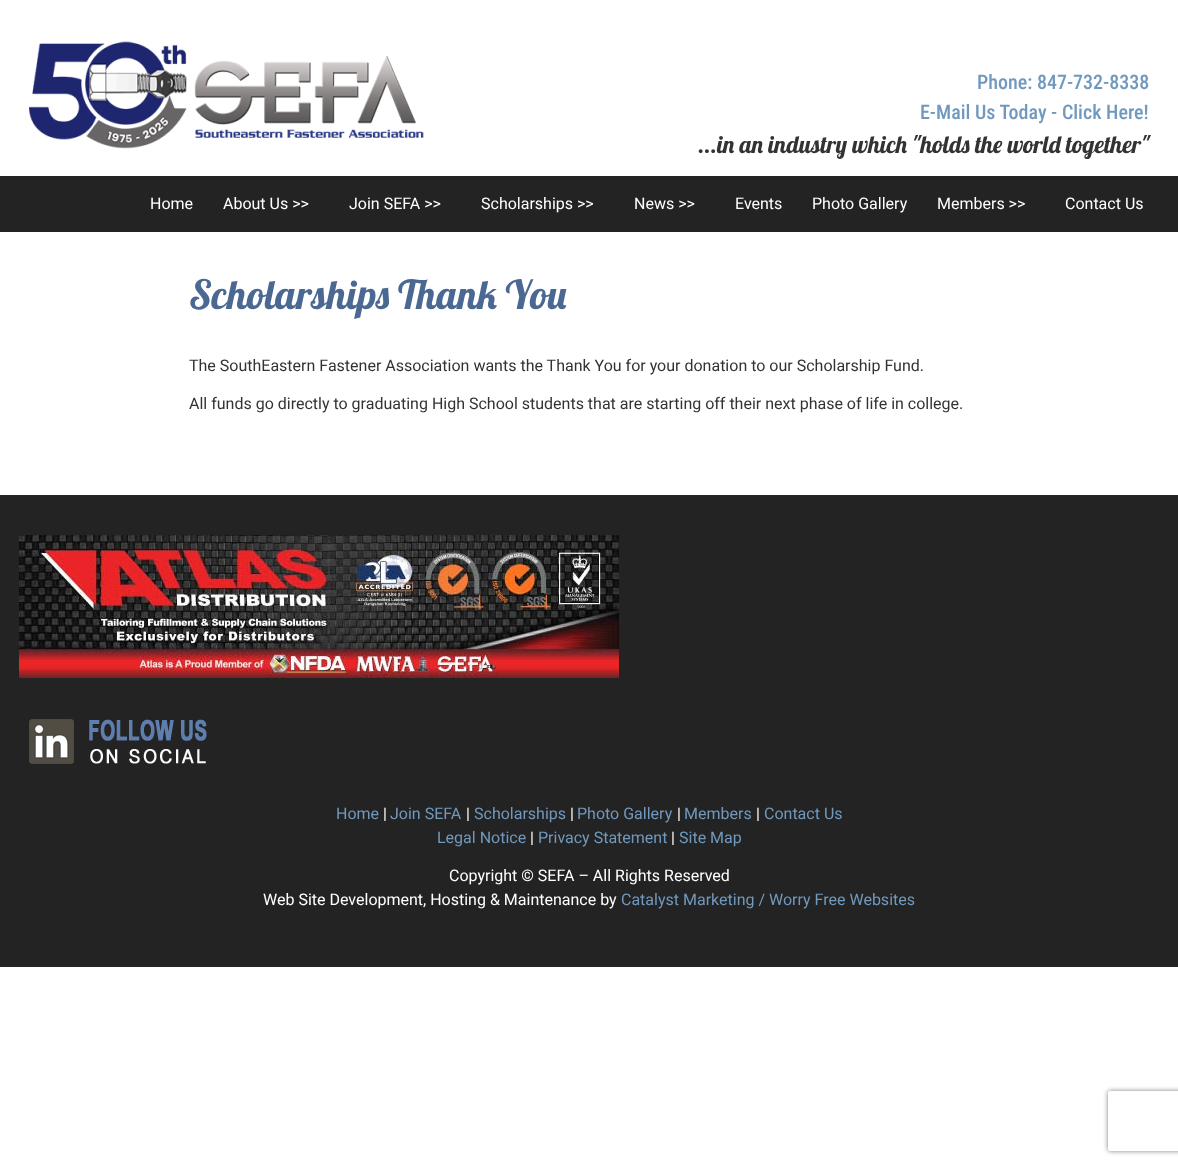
(async () => {
  const canvas = document.querySelector("canvas");
  canvas.width = 1178;
  canvas.height = 1165;
  const ctx = canvas.getContext("2d");
  ctx.miterLimit = 4;
  ctx.fontKerning = "normal";
  async function loadImage(src) {
    const img = new Image();
    img.src = src;
    await img.decode();
    return img;
  }
  let path;

  ctx.fillStyle = "#ffffff";
  ctx.fillRect(0, 0, 1178, 1165);
  ctx.drawImage(await loadImage("img/1.png"), 29, 41, 395, 108);
  ctx.fillStyle = "#242323";
  ctx.fillRect(0, 176, 1178, 56);
  ctx.fillRect(0, 495, 1178, 472);
  ctx.drawImage(await loadImage("img/2.png"), 19, 535, 600, 143);
  ctx.drawImage(await loadImage("img/3.png"), 29, 719, 178, 45);
  ctx.save();
  path = new Path2D("M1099 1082H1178V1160H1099ZM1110 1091H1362C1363 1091 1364 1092 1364 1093V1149C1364 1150 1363 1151 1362 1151H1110C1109 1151 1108 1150 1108 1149V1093C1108 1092 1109 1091 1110 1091Z");
  ctx.clip(path, "evenodd");
  ctx.fillStyle = "#808080";
  ctx.filter = "blur(2.5px)";
  ctx.beginPath();
  ctx.roundRect(1108, 1091, 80, 60, 2);
  ctx.fill();
  ctx.filter = "none";
  ctx.restore();
  ctx.font = "500 20px Roboto Condensed";
  ctx.fillStyle = "#7199be";
  ctx.fillText("Phone: 847-732-8338", 977, 89);
  ctx.fillText("E-Mail Us Today - Click Here!", 920, 119);
  ctx.font = "24px Lobster";
  ctx.fillStyle = "#333333";
  ctx.fillText("...in an industry which \"holds the world together\"", 698, 153);
  ctx.font = "16px Roboto";
  ctx.fillStyle = "#ffffff";
  for (const [text, x, y] of [
    ["Home", 150, 209],
    ["About Us >>", 223, 209],
    ["Join SEFA >>", 349, 209],
    ["Scholarships >>", 481, 209],
    ["News >>", 634, 209],
    ["Events", 735, 209],
    ["Photo Gallery", 812, 209],
    ["Members >>", 937, 209],
    ["Contact Us", 1065, 209],
  ]) {
    ctx.fillText(text, x, y);
  }
  ctx.font = "40px Lobster";
  ctx.fillStyle = "#4b6893";
  ctx.fillText("Scholarships Thank You", 189, 309);
  ctx.font = "16px Roboto";
  ctx.fillStyle = "#333333";
  ctx.fillText("The SouthEastern Fastener Association wants the Thank You for your donation to our Scholarship Fund.", 189, 371);
  ctx.fillText("All funds go directly to graduating High School students that are starting off their next phase of life in college.", 189, 409);
  ctx.fillStyle = "#7199be";
  ctx.fillText("Home", 336, 819);
  ctx.fillStyle = "#ffffff";
  ctx.fillText("|", 383, 819);
  ctx.fillStyle = "#7199be";
  ctx.fillText("Join SEFA", 390, 819);
  ctx.fillStyle = "#ffffff";
  ctx.fillText("|", 466, 819);
  ctx.fillStyle = "#7199be";
  ctx.fillText("Scholarships", 474, 819);
  ctx.fillStyle = "#ffffff";
  ctx.fillText("|", 570, 819);
  ctx.fillStyle = "#7199be";
  ctx.fillText("Photo Gallery", 577, 819);
  ctx.fillStyle = "#ffffff";
  ctx.fillText("|", 677, 819);
  ctx.fillStyle = "#7199be";
  ctx.fillText("Members", 684, 819);
  ctx.fillStyle = "#ffffff";
  ctx.fillText("|", 756, 819);
  ctx.fillStyle = "#7199be";
  ctx.fillText("Contact Us", 764, 819);
  ctx.fillText("Legal Notice", 437, 843);
  ctx.fillStyle = "#ffffff";
  ctx.fillText("|", 530, 843);
  ctx.fillStyle = "#7199be";
  ctx.fillText("Privacy Statement", 538, 843);
  ctx.fillStyle = "#ffffff";
  ctx.fillText("|", 671, 843);
  ctx.fillStyle = "#7199be";
  ctx.fillText("Site Map", 679, 843);
  ctx.fillStyle = "#ffffff";
  ctx.fillText("Copyright © SEFA – All Rights Reserved", 449, 881);
  ctx.fillText("Web Site Development, Hosting & Maintenance by", 263, 905);
  ctx.fillStyle = "#7199be";
  ctx.fillText("Catalyst Marketing / Worry Free Websites", 621, 905);
})();
